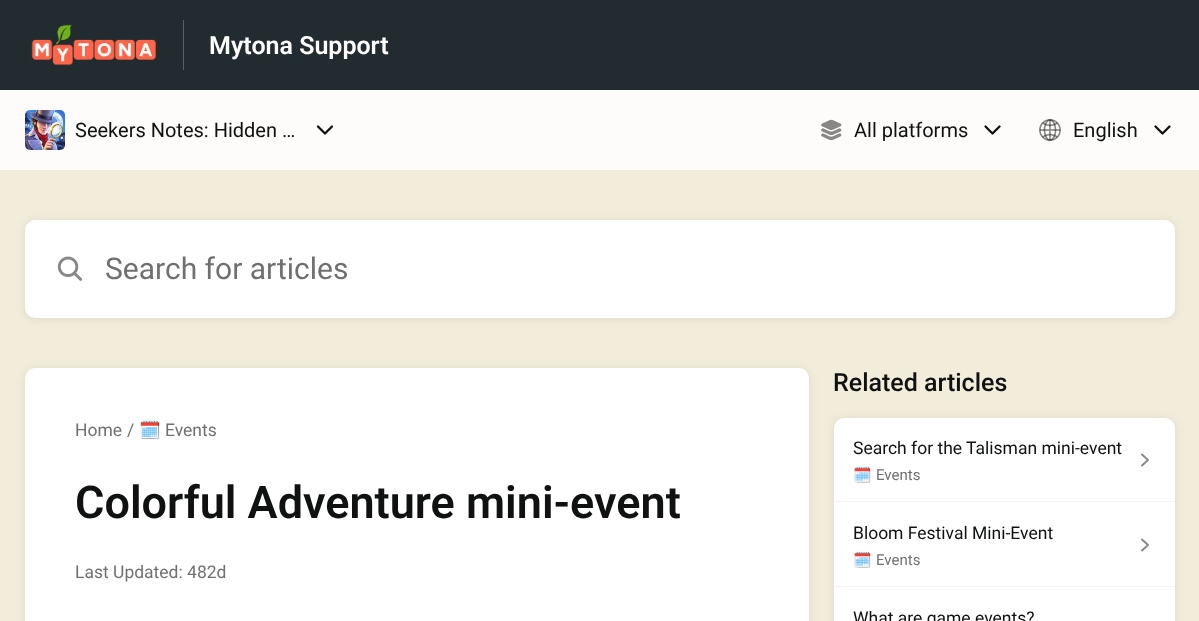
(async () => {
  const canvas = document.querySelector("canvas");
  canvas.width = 1199;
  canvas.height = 621;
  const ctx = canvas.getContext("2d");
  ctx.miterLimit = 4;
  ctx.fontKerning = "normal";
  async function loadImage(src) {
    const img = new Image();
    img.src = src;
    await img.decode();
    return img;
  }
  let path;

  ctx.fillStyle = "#fdfcfa";
  ctx.fillRect(0, 0, 1199, 621);
  ctx.fillStyle = "#222b2f";
  ctx.fillRect(0, 0, 1199, 90);
  ctx.fillStyle = "#596063";
  ctx.fillRect(183, 20, 1, 50);
  ctx.drawImage(await loadImage("img/1.png"), 31, 24, 125, 42);
  ctx.drawImage(await loadImage("img/2.png"), 25, 110, 40, 40);
  path = new Path2D("M318 126.5L325 133.5L332 126.5");
  ctx.strokeStyle = "#101111";
  ctx.lineWidth = 2.3;
  ctx.lineCap = "round";
  ctx.lineJoin = "round";
  ctx.stroke(path);
  ctx.drawImage(await loadImage("img/3.png"), 821, 119, 21, 22);
  path = new Path2D("M985.5 126.5L992.5 133.5L999.5 126.5");
  ctx.stroke(path);
  ctx.drawImage(await loadImage("img/4.png"), 1039, 119, 22, 22);
  path = new Path2D("M1155.5 126.5L1162.5 133.5L1169.5 126.5");
  ctx.stroke(path);
  ctx.fillStyle = "#f2ecdb";
  ctx.fillRect(0, 170, 1199, 451);
  ctx.fillStyle = "rgba(0, 0, 0, 0.08)";
  ctx.filter = "blur(5px)";
  ctx.beginPath();
  ctx.roundRect(25, 221, 1150, 98, 10);
  ctx.fill();
  ctx.filter = "none";
  ctx.fillStyle = "#ffffff";
  ctx.beginPath();
  ctx.roundRect(25, 220, 1150, 98, 10);
  ctx.fill();
  ctx.drawImage(await loadImage("img/5.png"), 57, 256, 26, 25);
  ctx.fillStyle = "rgba(0, 0, 0, 0.08)";
  ctx.filter = "blur(5px)";
  ctx.beginPath();
  ctx.roundRect(25, 369, 784, 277, 10);
  ctx.fill();
  ctx.filter = "none";
  ctx.fillStyle = "#ffffff";
  ctx.beginPath();
  ctx.roundRect(25, 368, 784, 253, [10, 10, 0, 0]);
  ctx.fill();
  ctx.fillStyle = "rgba(0, 0, 0, 0.08)";
  ctx.filter = "blur(5px)";
  ctx.beginPath();
  ctx.roundRect(834, 419, 341, 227, 10);
  ctx.fill();
  ctx.filter = "none";
  ctx.fillStyle = "#ffffff";
  ctx.beginPath();
  ctx.roundRect(834, 418, 341, 203, [10, 10, 0, 0]);
  ctx.fill();
  ctx.fillStyle = "#f3f3f3";
  ctx.fillRect(834, 501, 341, 1);
  path = new Path2D("M1142 454.5L1148 460L1142 465.5");
  ctx.strokeStyle = "#888888";
  ctx.lineWidth = 1.9;
  ctx.stroke(path);
  ctx.fillRect(834, 586, 341, 1);
  path = new Path2D("M1142 539.5L1148 545L1142 550.5");
  ctx.stroke(path);
  ctx.font = "600 25px Roboto";
  ctx.fillStyle = "#ffffff";
  ctx.fillText("Mytona Support", 209, 54);
  ctx.font = "20px Roboto";
  ctx.fillStyle = "#101111";
  for (const [text, x, y] of [
    ["Seekers Notes: Hidden …", 75, 137],
    ["All platforms", 854, 137],
    ["English", 1073, 137],
  ]) {
    ctx.fillText(text, x, y);
  }
  ctx.font = "30px Roboto";
  ctx.fillStyle = "#707070";
  ctx.fillText("Search for articles", 105, 279);
  ctx.font = "17.5px Roboto";
  ctx.fillText("Home", 75, 436);
  ctx.fillText("/", 127, 436);
  ctx.font = "17.5px Noto Color Emoji";
  ctx.fillText("🗓️", 139, 436);
  ctx.font = "17.5px Roboto";
  ctx.fillText("Events", 165, 436);
  ctx.font = "600 45px Roboto";
  ctx.fillStyle = "#101111";
  ctx.fillText("Colorful Adventure mini-event", 75, 518);
  ctx.font = "17.5px Roboto";
  ctx.fillStyle = "#707070";
  ctx.fillText("Last Updated: 482d", 75, 578);
  ctx.font = "500 25px Roboto";
  ctx.fillStyle = "#101111";
  ctx.fillText("Related articles", 833, 391);
  ctx.font = "17.5px Roboto";
  ctx.fillText("Search for the Talisman mini-event", 853, 454);
  ctx.font = "15px Noto Color Emoji";
  ctx.fillStyle = "#707070";
  ctx.fillText("🗓️", 853, 480);
  ctx.font = "15px Roboto";
  ctx.fillText("Events", 876, 480);
  ctx.font = "17.5px Roboto";
  ctx.fillStyle = "#101111";
  ctx.fillText("Bloom Festival Mini-Event", 853, 539);
  ctx.font = "15px Noto Color Emoji";
  ctx.fillStyle = "#707070";
  ctx.fillText("🗓️", 853, 565);
  ctx.font = "15px Roboto";
  ctx.fillText("Events", 876, 565);
  ctx.font = "17.5px Roboto";
  ctx.fillStyle = "#101111";
  ctx.fillText("What are game events?", 853, 624);
})();
